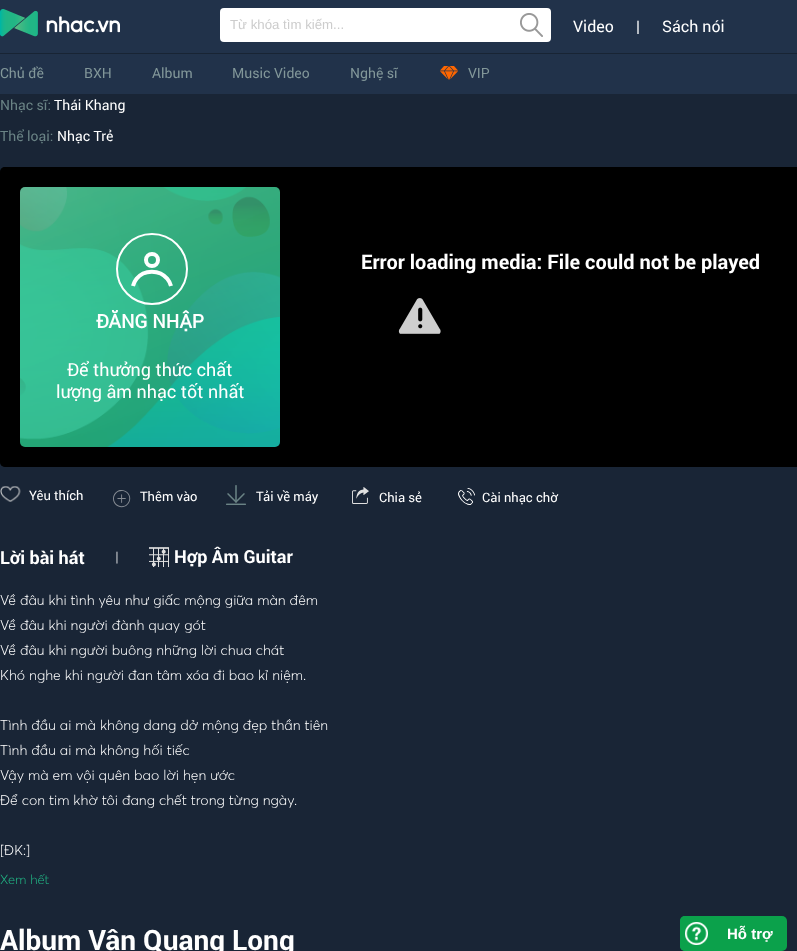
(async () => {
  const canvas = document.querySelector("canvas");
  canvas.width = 797;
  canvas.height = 951;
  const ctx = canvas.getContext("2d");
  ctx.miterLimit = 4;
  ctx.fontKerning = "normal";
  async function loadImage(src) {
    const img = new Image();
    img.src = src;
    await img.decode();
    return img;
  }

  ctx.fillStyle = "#192536";
  ctx.fillRect(0, 0, 797, 951);
  ctx.drawImage(await loadImage("img/1.png"), 0, 0, 797, 94);
  ctx.drawImage(await loadImage("img/2.png"), 0, 9, 120, 28);
  ctx.fillStyle = "#ffffff";
  ctx.beginPath();
  ctx.roundRect(220, 8, 220, 34, [4, 0, 0, 4]);
  ctx.fill();
  ctx.beginPath();
  ctx.roundRect(440, 8, 111, 34, [0, 4, 4, 0]);
  ctx.fill();
  ctx.drawImage(await loadImage("img/3.png"), 520, 13, 23, 24);
  ctx.drawImage(await loadImage("img/4.png"), 440, 66, 18, 14);
  ctx.fillStyle = "#000000";
  ctx.beginPath();
  ctx.roundRect(0, 167, 797, 300, [5, 0, 0, 5]);
  ctx.fill();
  ctx.fillStyle = "rgba(0, 0, 0, 0.55)";
  ctx.beginPath();
  ctx.roundRect(0, 167, 797, 300, [5, 0, 0, 5]);
  ctx.fill();
  ctx.drawImage(await loadImage("img/5.png"), 398, 298, 43, 36);
  ctx.drawImage(await loadImage("img/6.png"), 20, 187, 260, 260);
  ctx.drawImage(await loadImage("img/7.png"), 116, 233, 72, 72);
  ctx.drawImage(await loadImage("img/8.png"), 0, 486, 21, 16);
  ctx.drawImage(await loadImage("img/9.png"), 113, 490, 18, 18);
  ctx.drawImage(await loadImage("img/10.png"), 226, 485, 20, 20);
  ctx.drawImage(await loadImage("img/11.png"), 352, 487, 17, 17);
  ctx.drawImage(await loadImage("img/12.png"), 458, 488, 17, 17);
  ctx.drawImage(await loadImage("img/13.png"), 149, 547, 20, 20);
  ctx.fillStyle = "#0ba14b";
  ctx.beginPath();
  ctx.roundRect(680, 916, 107, 35, 5);
  ctx.fill();
  ctx.beginPath();
  ctx.roundRect(680, 916, 35, 35, 5);
  ctx.fill();
  ctx.drawImage(await loadImage("img/14.png"), 685, 922, 23, 23);
  ctx.font = "13.25px Liberation Sans";
  ctx.fillStyle = "#cccccc";
  ctx.fillText("Từ khóa tìm kiếm...", 230, 29);
  ctx.font = "16px Roboto";
  ctx.fillStyle = "#ffffff";
  for (const [text, x, y] of [
    ["Video", 573, 32],
    ["|", 636, 32],
    ["Sách nói", 662, 32],
  ]) {
    ctx.fillText(text, x, y);
  }
  ctx.font = "14px Roboto";
  ctx.fillStyle = "#829799";
  for (const [text, x, y] of [
    ["Chủ đề", 0, 78],
    ["BXH", 84, 78],
    ["Album", 152, 78],
    ["Music Video", 232, 78],
    ["Nghệ sĩ", 350, 78],
    ["VIP", 468, 78],
  ]) {
    ctx.fillText(text, x, y);
  }
  ctx.fillStyle = "#6a8385";
  ctx.fillText("Nhạc sĩ:", 0, 110);
  ctx.fillStyle = "#ffffff";
  ctx.fillText("Thái Khang", 54, 110);
  ctx.fillStyle = "#6a8385";
  ctx.fillText("Thể loại:", 0, 141);
  ctx.fillStyle = "#ffffff";
  ctx.fillText("Nhạc Trẻ", 57, 141);
  ctx.font = "bold 20px Roboto";
  ctx.fillText("Error loading media: File could not be played", 361, 269);
  ctx.font = "bold 19px 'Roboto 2'";
  ctx.fillText("ĐĂNG NHẬP", 96, 328);
  ctx.font = "18px Roboto";
  ctx.fillText("Để thưởng thức chất", 67, 376);
  ctx.fillText("lượng âm nhạc tốt nhất", 56, 398);
  ctx.font = "13px Roboto";
  for (const [text, x, y] of [
    ["Yêu thích", 29, 500],
    ["Thêm vào", 140, 501],
    ["Tải về máy", 256, 501],
    ["Chia sẻ", 379, 502],
    ["Cài nhạc chờ", 482, 502],
  ]) {
    ctx.fillText(text, x, y);
  }
  ctx.font = "bold 18px Roboto";
  ctx.fillText("Lời bài hát", 0, 564);
  ctx.font = "300 14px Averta";
  ctx.fillText("|", 115, 562);
  ctx.font = "bold 18px Roboto";
  ctx.fillText("Hợp Âm Guitar", 174, 563);
  ctx.font = "300 14px Averta";
  for (const [text, x, y] of [
    ["Về đâu khi tình yêu như giấc mộng giữa màn đêm", 0, 605],
    ["Về đâu khi người đành quay gót", 0, 630],
    ["Về đâu khi người buông những lời chua chát", 0, 655],
    ["Khó nghe khi người đan tâm xóa đi bao kỉ niệm.", 0, 680],
    ["Tình đầu ai mà không dang dở mộng đẹp thần tiên", 0, 730],
    ["Tình đầu ai mà không hối tiếc", 0, 755],
    ["Vậy mà em vội quên bao lời hẹn ước", 0, 780],
    ["Để con tim khờ tôi đang chết trong từng ngày.", 0, 805],
    ["[ĐK:]", 0, 855],
  ]) {
    ctx.fillText(text, x, y);
  }
  ctx.font = "300 13px Averta";
  ctx.fillStyle = "#21b685";
  ctx.fillText("Xem hết", 0, 884);
  ctx.font = "bold 28px Roboto";
  ctx.fillStyle = "#ffffff";
  ctx.fillText("Album Vân Quang Long", 0, 950);
  ctx.font = "bold 15px Liberation Sans";
  ctx.fillText("Hỗ trợ", 727, 939);
})();
